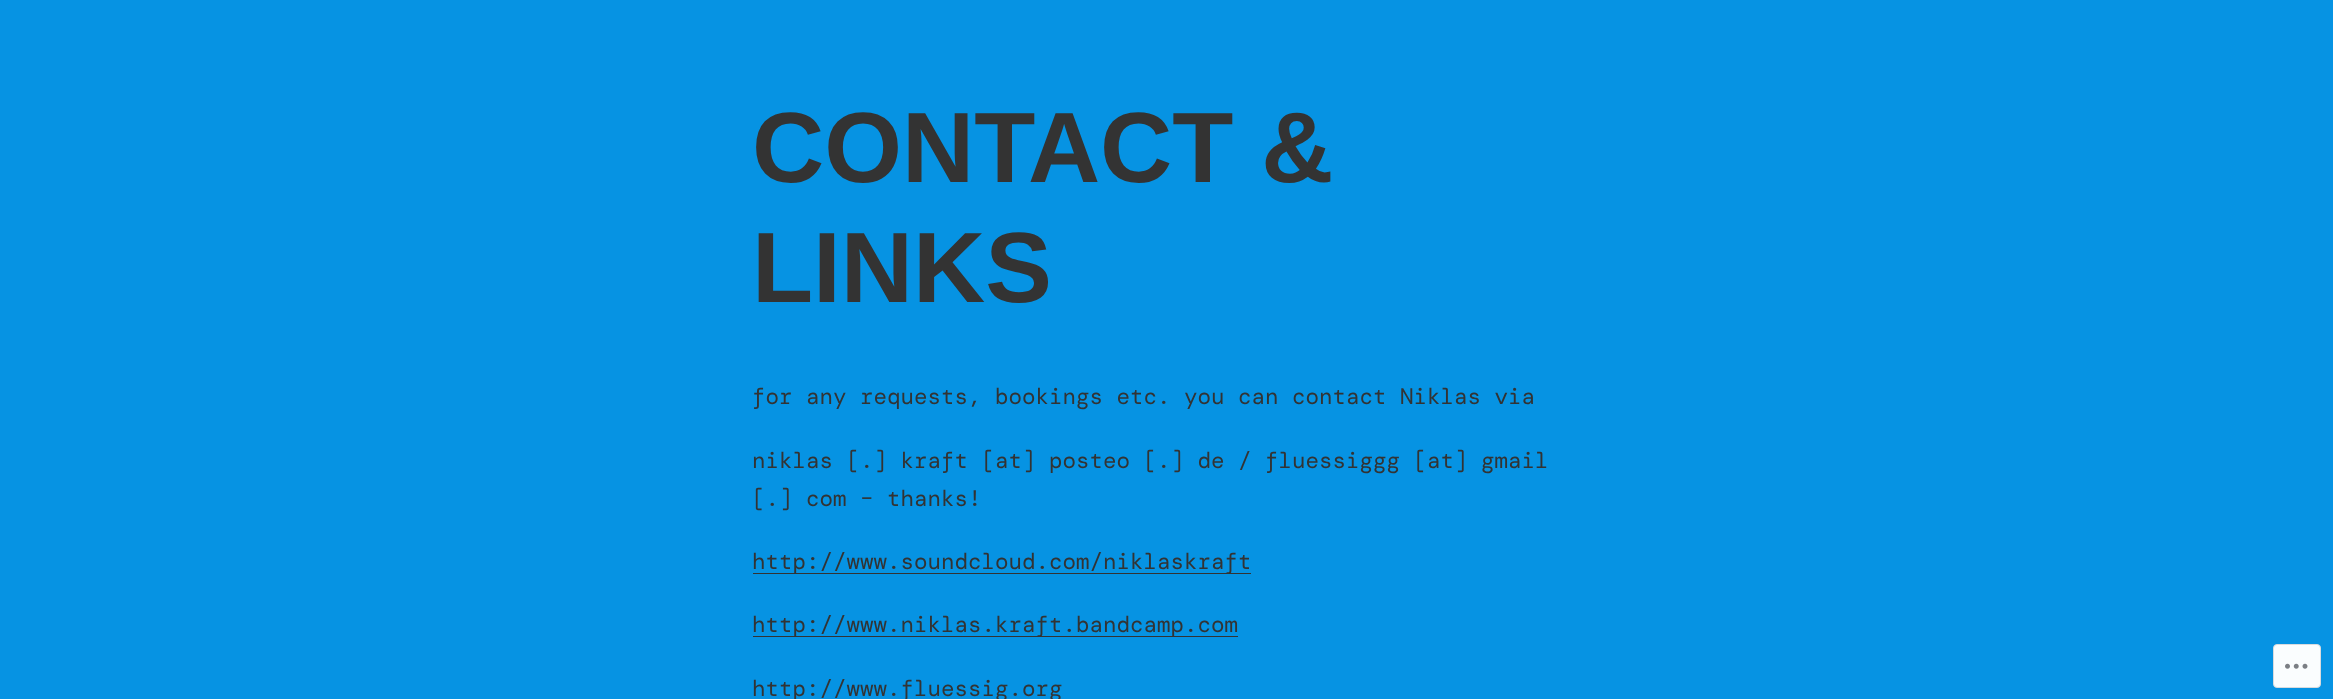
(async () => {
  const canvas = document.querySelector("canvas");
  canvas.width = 2333;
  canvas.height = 699;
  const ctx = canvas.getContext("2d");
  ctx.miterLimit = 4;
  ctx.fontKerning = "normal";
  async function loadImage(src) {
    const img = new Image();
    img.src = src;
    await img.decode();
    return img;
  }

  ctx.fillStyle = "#0693e3";
  ctx.fillRect(0, 0, 2333, 699);
  ctx.fillStyle = "#333333";
  ctx.fillRect(753, 573, 498, 1);
  ctx.fillRect(753, 636, 485, 1);
  ctx.fillStyle = "#fafdfe";
  ctx.beginPath();
  ctx.roundRect(2273.5, 644.5, 47, 43, 3.5);
  ctx.fill();
  ctx.strokeStyle = "#d8dbde";
  ctx.stroke();
  ctx.drawImage(await loadImage("img/1.png"), 2285, 663, 23, 6);
  ctx.font = "bold 100px Liberation Sans";
  ctx.fillStyle = "#333333";
  ctx.fillText("CONTACT &", 752, 182);
  ctx.fillText("LINKS", 752, 302);
  ctx.font = "22.5px DM Mono";
  for (const [text, x, y] of [
    ["for any requests, bookings etc. you can contact Niklas via", 752, 404],
    ["niklas [.] kraft [at] posteo [.] de / fluessiggg [at] gmail", 752, 468],
    ["[.] com – thanks!", 752, 506],
    ["http://www.soundcloud.com/niklaskraft", 752, 569],
    ["http://www.niklas.kraft.bandcamp.com", 752, 632],
    ["http://www.fluessig.org", 752, 696],
  ]) {
    ctx.fillText(text, x, y);
  }
})();
